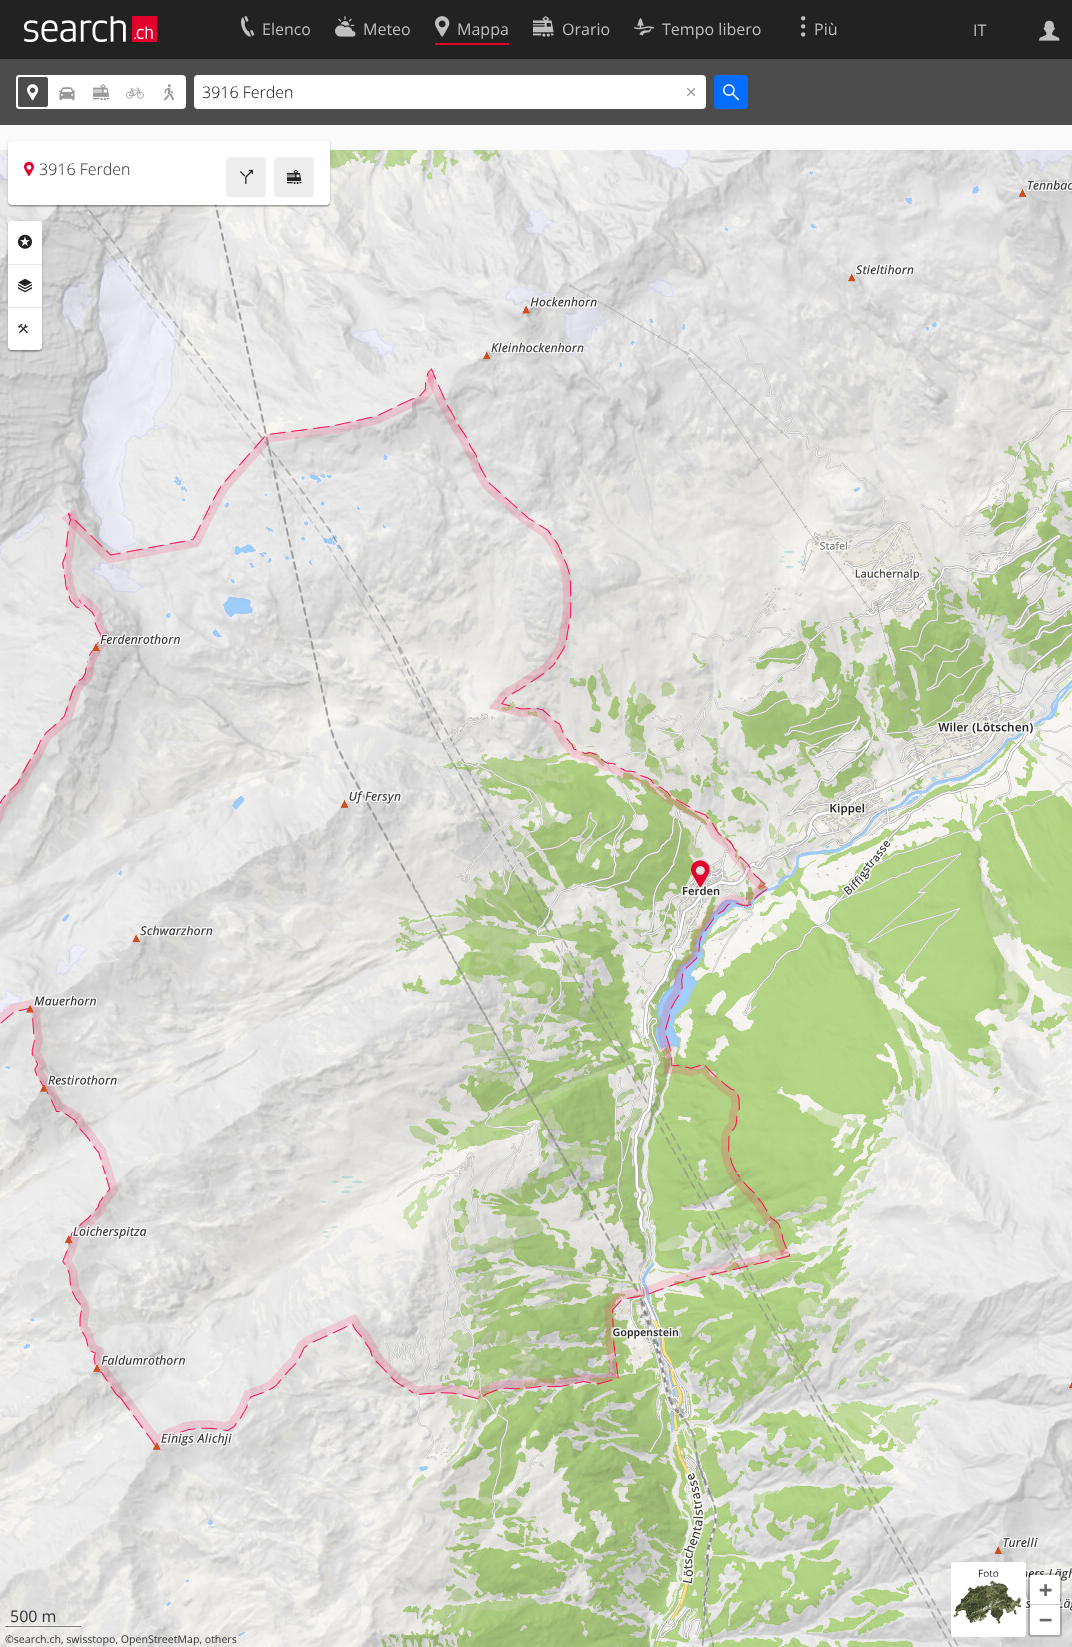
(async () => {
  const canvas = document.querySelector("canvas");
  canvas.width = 1072;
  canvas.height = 1647;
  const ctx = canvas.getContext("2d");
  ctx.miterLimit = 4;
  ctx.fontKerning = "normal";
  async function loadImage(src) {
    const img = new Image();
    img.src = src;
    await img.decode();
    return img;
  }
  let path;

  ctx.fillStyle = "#fafafa";
  ctx.fillRect(0, 0, 1072, 1647);
  ctx.fillStyle = "#222222";
  ctx.fillRect(0, 0, 1072, 59);
  ctx.drawImage(await loadImage("img/1.png"), 24, 16, 133, 26);
  ctx.drawImage(await loadImage("img/2.png"), 241, 16, 14, 21);
  ctx.drawImage(await loadImage("img/3.png"), 335, 16, 21, 21);
  ctx.fillStyle = "#e4002c";
  ctx.fillRect(435, 43, 74, 2);
  ctx.drawImage(await loadImage("img/4.png"), 435, 16, 15, 21);
  ctx.drawImage(await loadImage("img/5.png"), 533, 16, 21, 21);
  ctx.drawImage(await loadImage("img/6.png"), 634, 17, 21, 19);
  ctx.drawImage(await loadImage("img/7.png"), 801, 16, 5, 21);
  ctx.drawImage(await loadImage("img/8.png"), 1039, 20, 21, 21);
  ctx.fillStyle = "#4c4c4c";
  ctx.fillRect(0, 59, 1072, 66);
  ctx.fillStyle = "#ffffff";
  ctx.beginPath();
  ctx.roundRect(16, 75, 170, 34, 4);
  ctx.fill();
  ctx.fillStyle = "#4c4c4c";
  ctx.beginPath();
  ctx.roundRect(17, 76, 32, 32, 3);
  ctx.fill();
  ctx.strokeStyle = "#ffffff";
  ctx.lineWidth = 2;
  ctx.stroke();
  ctx.drawImage(await loadImage("img/9.png"), 27, 84, 12, 17);
  ctx.drawImage(await loadImage("img/10.png"), 59, 87, 16, 14);
  ctx.drawImage(await loadImage("img/11.png"), 93, 84, 17, 17);
  ctx.drawImage(await loadImage("img/12.png"), 126, 87, 18, 12);
  ctx.drawImage(await loadImage("img/13.png"), 164, 84, 10, 17);
  ctx.fillStyle = "#ffffff";
  ctx.beginPath();
  ctx.roundRect(194, 75, 512, 34, 4);
  ctx.fill();
  ctx.drawImage(await loadImage("img/14.png"), 687, 88, 9, 8);
  ctx.fillStyle = "#056dff";
  ctx.beginPath();
  ctx.roundRect(714, 75, 34, 34, 4);
  ctx.fill();
  ctx.drawImage(await loadImage("img/15.png"), 723, 84, 16, 17);
  ctx.drawImage(await loadImage("img/23.png"), 0, 150, 412, 512);
  ctx.save();
  path = new Path2D("M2 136H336V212H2ZM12 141H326C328 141 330 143 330 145V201C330 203 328 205 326 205H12C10 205 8 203 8 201V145C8 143 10 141 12 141Z");
  ctx.clip(path, "evenodd");
  ctx.fillStyle = "rgba(0, 0, 0, 0.2)";
  ctx.filter = "blur(1.5px)";
  ctx.beginPath();
  ctx.roundRect(8, 142, 322, 64, 4);
  ctx.fill();
  ctx.filter = "none";
  ctx.restore();
  ctx.fillStyle = "rgba(0, 0, 0, 0.12)";
  ctx.filter = "blur(0.5px)";
  ctx.beginPath();
  ctx.roundRect(8, 143, 322, 64, 4);
  ctx.fill();
  ctx.filter = "none";
  ctx.fillStyle = "rgba(0, 0, 0, 0.14)";
  ctx.filter = "blur(0.5px)";
  ctx.beginPath();
  ctx.roundRect(8, 142, 322, 64, 4);
  ctx.fill();
  ctx.filter = "none";
  ctx.fillStyle = "#ffffff";
  ctx.beginPath();
  ctx.roundRect(8, 141, 322, 64, 4);
  ctx.fill();
  ctx.drawImage(await loadImage("img/16.png"), 24, 161, 10, 16);
  ctx.fillStyle = "#eeeeee";
  ctx.beginPath();
  ctx.roundRect(226, 157, 40, 40, 4);
  ctx.fill();
  ctx.drawImage(await loadImage("img/17.png"), 240, 169, 13, 16);
  ctx.beginPath();
  ctx.roundRect(274, 157, 40, 40, 4);
  ctx.fill();
  ctx.drawImage(await loadImage("img/18.png"), 287, 169, 15, 16);
  ctx.save();
  path = new Path2D("M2 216H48V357H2ZM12 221H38C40 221 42 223 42 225V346C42 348 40 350 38 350H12C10 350 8 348 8 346V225C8 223 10 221 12 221Z");
  ctx.clip(path, "evenodd");
  ctx.fillStyle = "rgba(0, 0, 0, 0.2)";
  ctx.filter = "blur(1.5px)";
  ctx.beginPath();
  ctx.roundRect(8, 222, 34, 129, 4);
  ctx.fill();
  ctx.filter = "none";
  ctx.restore();
  ctx.fillStyle = "rgba(0, 0, 0, 0.12)";
  ctx.filter = "blur(0.5px)";
  ctx.beginPath();
  ctx.roundRect(8, 223, 34, 129, 4);
  ctx.fill();
  ctx.filter = "none";
  ctx.fillStyle = "rgba(0, 0, 0, 0.14)";
  ctx.filter = "blur(0.5px)";
  ctx.beginPath();
  ctx.roundRect(8, 222, 34, 129, 4);
  ctx.fill();
  ctx.filter = "none";
  ctx.fillStyle = "#ffffff";
  ctx.beginPath();
  ctx.roundRect(8, 221, 34, 129, 4);
  ctx.fill();
  ctx.save();
  ctx.beginPath();
  ctx.roundRect(8, 221, 34, 129, 3);
  ctx.clip();
  ctx.beginPath();
  ctx.roundRect(8, 221, 34, 44, [4, 4, 0, 0]);
  ctx.fill();
  ctx.restore();
  ctx.fillStyle = "#e6e6e6";
  ctx.fillRect(8, 264, 34, 1);
  ctx.drawImage(await loadImage("img/19.png"), 18, 234, 14, 15);
  ctx.fillRect(8, 307, 34, 1);
  ctx.drawImage(await loadImage("img/20.png"), 18, 278, 14, 15);
  ctx.save();
  ctx.beginPath();
  ctx.roundRect(8, 221, 34, 129, 3);
  ctx.clip();
  ctx.fillStyle = "#ffffff";
  ctx.beginPath();
  ctx.roundRect(8, 308, 34, 42, [0, 0, 4, 4]);
  ctx.fill();
  ctx.restore();
  ctx.drawImage(await loadImage("img/21.png"), 18, 323, 10, 11);
  ctx.drawImage(await loadImage("img/31.png"), 924, 1174, 148, 473);
  ctx.drawImage(await loadImage("img/40.png"), 994, 1382, 78, 230);
  ctx.fillStyle = "#ffffff";
  ctx.beginPath();
  ctx.roundRect(951, 1562, 75, 75, 3);
  ctx.fill();
  ctx.drawImage(await loadImage("img/22.png"), 953, 1580, 71, 46);
  ctx.drawImage(await loadImage("img/24.png"), 412, 150, 512, 512);
  ctx.drawImage(await loadImage("img/25.png"), 924, 150, 148, 512);
  ctx.drawImage(await loadImage("img/26.png"), 0, 662, 412, 512);
  ctx.drawImage(await loadImage("img/27.png"), 412, 662, 512, 512);
  ctx.drawImage(await loadImage("img/28.png"), 924, 662, 148, 512);
  ctx.drawImage(await loadImage("img/29.png"), 0, 1174, 412, 473);
  ctx.drawImage(await loadImage("img/30.png"), 412, 1174, 512, 473);
  ctx.drawImage(await loadImage("img/32.png"), 1018, 179, 54, 18);
  ctx.drawImage(await loadImage("img/33.png"), 61, 398, 351, 264);
  ctx.drawImage(await loadImage("img/34.png"), 412, 264, 508, 398);
  ctx.drawImage(await loadImage("img/35.png"), 0, 662, 402, 512);
  ctx.drawImage(await loadImage("img/36.png"), 488, 662, 404, 512);
  ctx.drawImage(await loadImage("img/37.png"), 936, 721, 99, 14);
  ctx.drawImage(await loadImage("img/38.png"), 62, 1174, 350, 276);
  ctx.drawImage(await loadImage("img/39.png"), 412, 1174, 379, 412);
  ctx.drawImage(await loadImage("img/41.png"), 691, 860, 19, 28);
  ctx.beginPath();
  ctx.roundRect(1029, 1574, 32, 62, 3);
  ctx.strokeStyle = "rgba(0, 0, 0, 0.2)";
  ctx.stroke();
  ctx.beginPath();
  ctx.roundRect(1030, 1575, 30, 30, [2, 2, 0, 0]);
  ctx.fill();
  ctx.fillStyle = "#cccccc";
  ctx.fillRect(1030, 1604, 30, 1);
  ctx.fillStyle = "#ffffff";
  ctx.beginPath();
  ctx.roundRect(1030, 1605, 30, 30, [0, 0, 2, 2]);
  ctx.fill();
  for (const [x, y, w, h, color] of [
    [5, 1627, 76, 1, "rgba(255, 255, 255, 0.5)"],
    [5, 1625, 76, 1, "rgba(255, 255, 255, 0.5)"],
    [5, 1626, 76, 1, "#777777"],
  ]) {
    ctx.fillStyle = color;
    ctx.fillRect(x, y, w, h);
  }
  ctx.font = "16px Open Sans";
  ctx.fillStyle = "#bfbfbf";
  for (const [text, x, y] of [
    ["Elenco", 262, 35],
    ["Meteo", 363, 35],
    ["Mappa", 457, 35],
    ["Orario", 562, 35],
    ["Tempo libero", 662, 35],
    ["Più", 814, 35],
    ["IT", 973, 36],
  ]) {
    ctx.fillText(text, x, y);
  }
  ctx.font = "300 16px Open Sans";
  ctx.fillStyle = "#000000";
  ctx.fillText("3916 Ferden", 202, 98);
  ctx.fillStyle = "#222222";
  ctx.fillText("3916 Ferden", 39, 175);
  ctx.font = "10px Open Sans";
  ctx.fillText("Foto", 978, 1577);
  ctx.font = "bold 22px DejaVu Sans Mono";
  ctx.fillStyle = "#666666";
  ctx.fillText("+", 1039, 1597);
  ctx.fillText("−", 1039, 1627);
  ctx.font = "16px Open Sans";
  ctx.fillStyle = "#333333";
  ctx.fillText("500 m", 10, 1622);
  ctx.font = "10.6px Open Sans";
  ctx.fillText("©search.ch, swisstopo, OpenStreetMap, others", 5, 1643);
})();
